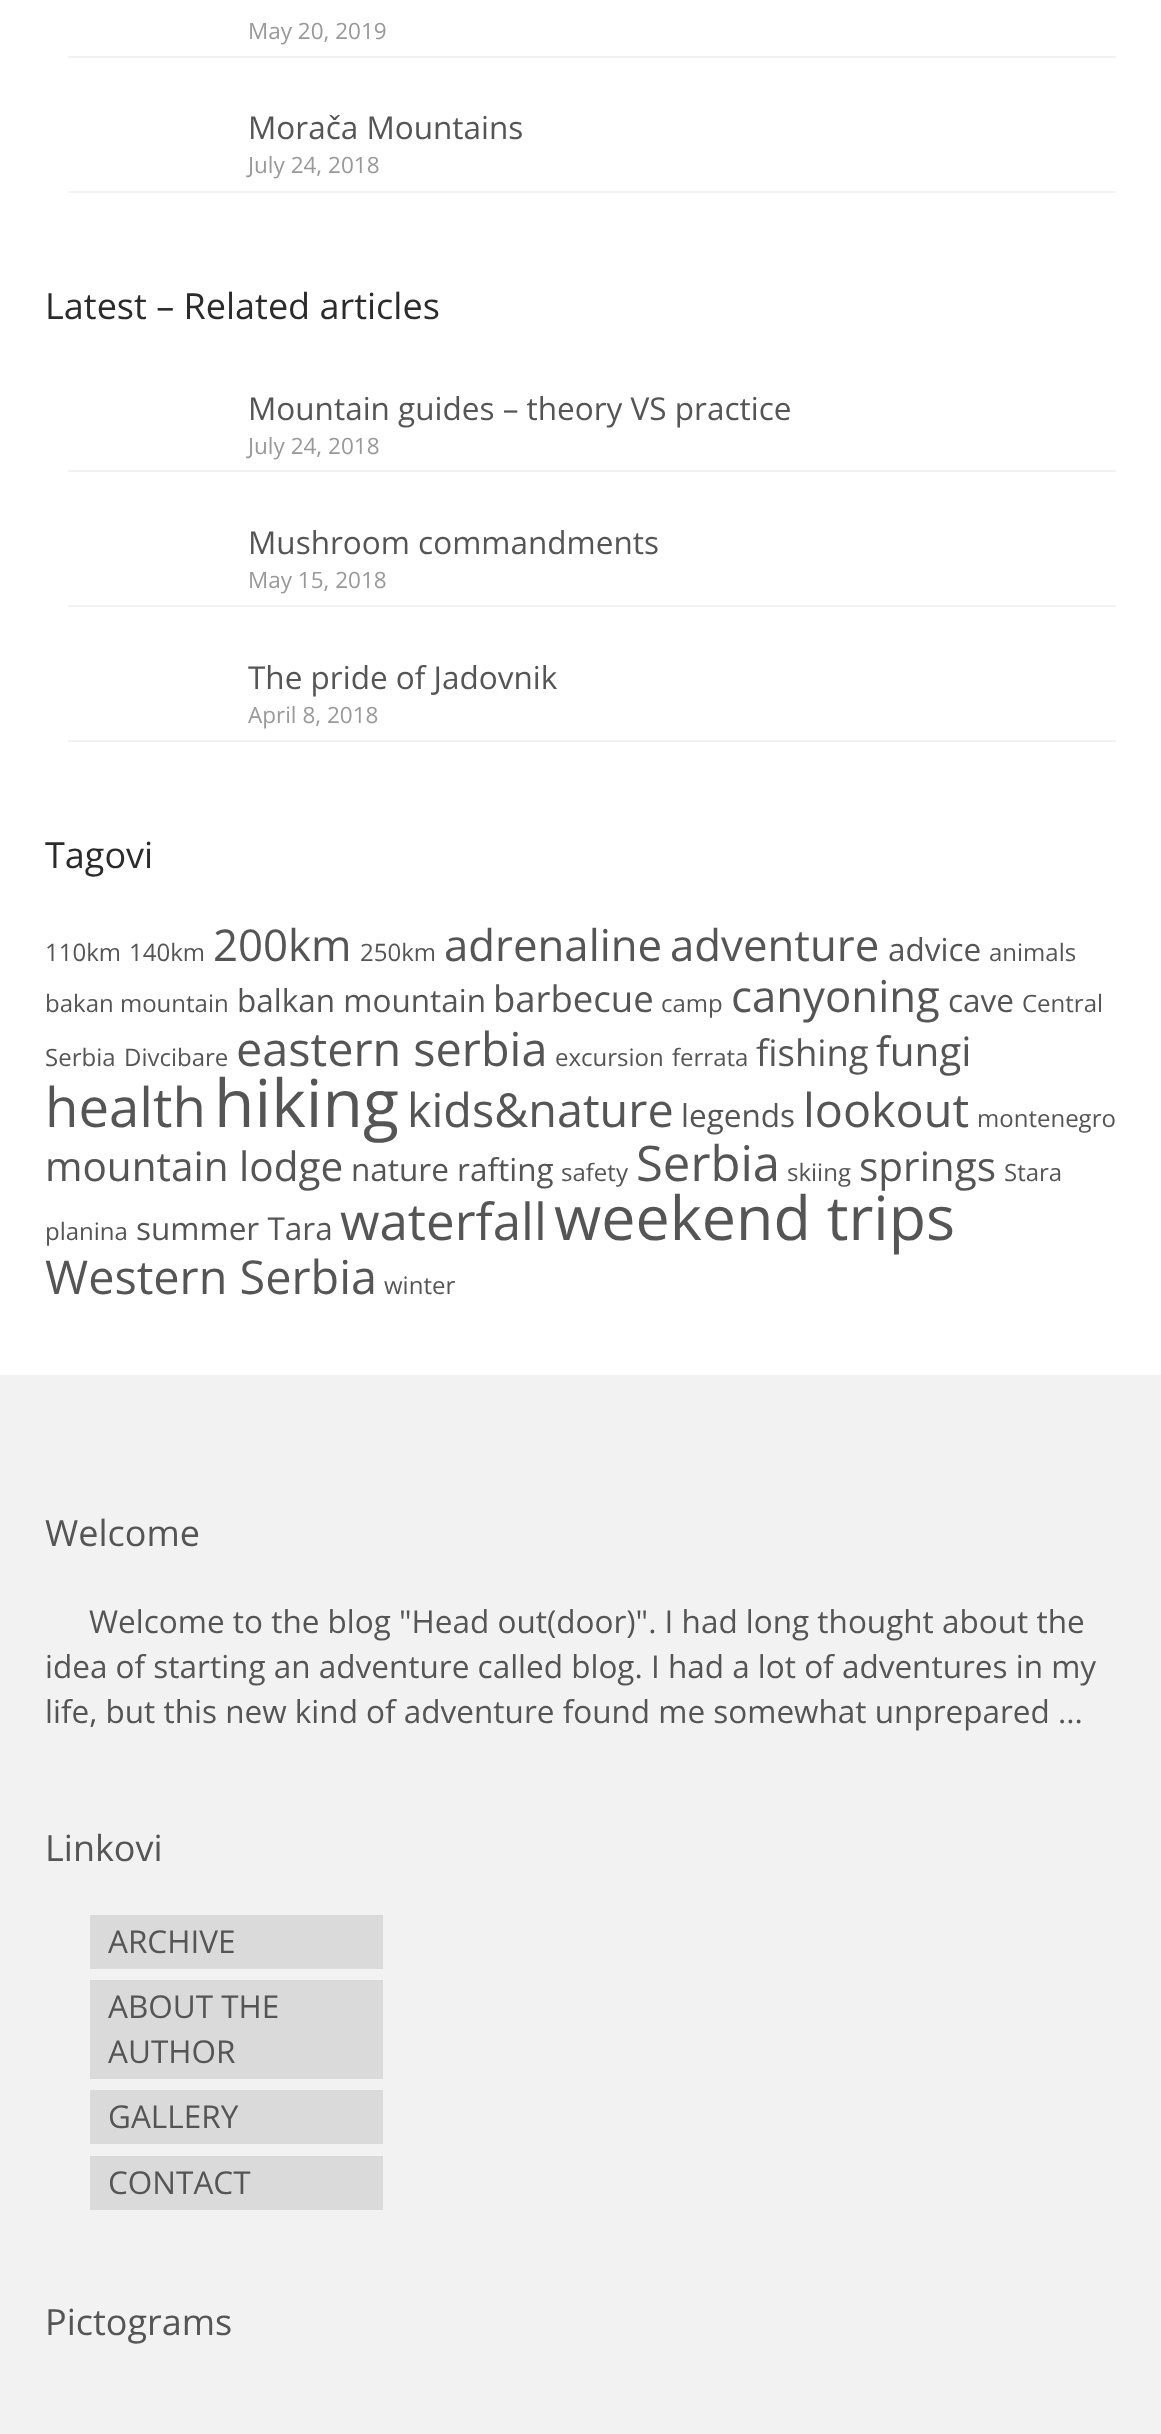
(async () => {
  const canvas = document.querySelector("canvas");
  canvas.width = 1161;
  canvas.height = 2434;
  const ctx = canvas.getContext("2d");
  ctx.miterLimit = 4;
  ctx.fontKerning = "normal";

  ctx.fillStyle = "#ffffff";
  ctx.fillRect(0, 0, 1161, 2434);
  for (const [x, y, w, h, color] of [
    [68, 56, 1048, 2, "#f2f2f2"],
    [68, 191, 1048, 2, "#f2f2f2"],
    [68, 470, 1048, 2, "#f2f2f2"],
    [68, 605, 1048, 2, "#f2f2f2"],
    [68, 740, 1048, 2, "#f2f2f2"],
    [0, 1375, 1161, 1059, "#f2f2f2"],
    [90, 1915, 293, 54, "#dadada"],
    [90, 1980, 293, 99, "#dadada"],
    [90, 2090, 293, 54, "#dadada"],
    [90, 2156, 293, 54, "#dadada"],
  ]) {
    ctx.fillStyle = color;
    ctx.fillRect(x, y, w, h);
  }
  ctx.font = "22.5px Open Sans";
  ctx.fillStyle = "#999999";
  ctx.fillText("May 20, 2019", 248, 39);
  ctx.font = "31.5px Open Sans";
  ctx.fillStyle = "#555555";
  ctx.fillText("Morača Mountains", 248, 139);
  ctx.font = "22.5px Open Sans";
  ctx.fillStyle = "#999999";
  ctx.fillText("July 24, 2018", 248, 173);
  ctx.font = "36px Open Sans";
  ctx.fillStyle = "#2b2b2b";
  ctx.fillText("Latest – Related articles", 45, 319);
  ctx.font = "31.5px Open Sans";
  ctx.fillStyle = "#555555";
  ctx.fillText("Mountain guides – theory VS practice", 248, 420);
  ctx.font = "22.5px Open Sans";
  ctx.fillStyle = "#999999";
  ctx.fillText("July 24, 2018", 248, 454);
  ctx.font = "31.5px Open Sans";
  ctx.fillStyle = "#555555";
  ctx.fillText("Mushroom commandments", 248, 554);
  ctx.font = "22.5px Open Sans";
  ctx.fillStyle = "#999999";
  ctx.fillText("May 15, 2018", 248, 588);
  ctx.font = "31.5px Open Sans";
  ctx.fillStyle = "#555555";
  ctx.fillText("The pride of Jadovnik", 248, 689);
  ctx.font = "22.5px Open Sans";
  ctx.fillStyle = "#999999";
  ctx.fillText("April 8, 2018", 248, 723);
  ctx.font = "36px Open Sans";
  ctx.fillStyle = "#2b2b2b";
  ctx.fillText("Tagovi", 45, 868);
  ctx.font = "24px Open Sans";
  ctx.fillStyle = "#555555";
  ctx.fillText("110km", 45, 961);
  ctx.fillText("140km", 129, 961);
  ctx.font = "43.75px Open Sans";
  ctx.fillText("200km", 213, 961);
  ctx.font = "24px Open Sans";
  ctx.fillText("250km", 360, 961);
  ctx.font = "43.75px Open Sans";
  ctx.fillText("adrenaline", 444, 961);
  ctx.fillText("adventure", 670, 961);
  ctx.font = "31.5px Open Sans";
  ctx.fillText("advice", 888, 961);
  ctx.font = "24px Open Sans";
  ctx.fillText("animals", 989, 961);
  ctx.fillText("bakan mountain", 45, 1012);
  ctx.font = "31.5px Open Sans";
  ctx.fillText("balkan mountain", 237, 1012);
  ctx.font = "36.5px Open Sans";
  ctx.fillText("barbecue", 493, 1012);
  ctx.font = "24px Open Sans";
  ctx.fillText("camp", 661, 1012);
  ctx.font = "43.75px Open Sans";
  ctx.fillText("canyoning", 731, 1012);
  ctx.font = "31.5px Open Sans";
  ctx.fillText("cave", 948, 1012);
  ctx.font = "24px Open Sans";
  for (const [text, x, y] of [
    ["Central", 1022, 1012],
    ["Serbia", 45, 1066],
    ["Divcibare", 124, 1066],
  ]) {
    ctx.fillText(text, x, y);
  }
  ctx.font = "46.75px Open Sans";
  ctx.fillText("eastern serbia", 236, 1066);
  ctx.font = "24px Open Sans";
  ctx.fillText("excursion", 555, 1066);
  ctx.fillText("ferrata", 672, 1066);
  ctx.font = "36.5px Open Sans";
  ctx.fillText("fishing", 756, 1066);
  ctx.font = "40.5px Open Sans";
  ctx.fillText("fungi", 876, 1066);
  ctx.font = "54.5px Open Sans";
  ctx.fillText("health", 45, 1127);
  ctx.font = "66px Open Sans";
  ctx.fillText("hiking", 214, 1127);
  ctx.font = "46.75px Open Sans";
  ctx.fillText("kids&nature", 407, 1127);
  ctx.font = "31.5px Open Sans";
  ctx.fillText("legends", 681, 1127);
  ctx.font = "46.75px Open Sans";
  ctx.fillText("lookout", 803, 1127);
  ctx.font = "24px Open Sans";
  ctx.fillText("montenegro", 977, 1127);
  ctx.font = "40.5px Open Sans";
  ctx.fillText("mountain lodge", 45, 1181);
  ctx.font = "31.5px Open Sans";
  ctx.fillText("nature rafting", 351, 1181);
  ctx.font = "24px Open Sans";
  ctx.fillText("safety", 561, 1181);
  ctx.font = "49px Open Sans";
  ctx.fillText("Serbia", 636, 1181);
  ctx.font = "24px Open Sans";
  ctx.fillText("skiing", 787, 1181);
  ctx.font = "40.5px Open Sans";
  ctx.fillText("springs", 859, 1181);
  ctx.font = "24px Open Sans";
  ctx.fillText("Stara", 1004, 1181);
  ctx.fillText("planina", 45, 1240);
  ctx.font = "31.5px Open Sans";
  ctx.fillText("summer Tara", 136, 1240);
  ctx.font = "51px Open Sans";
  ctx.fillText("waterfall", 340, 1240);
  ctx.font = "61px Open Sans";
  ctx.fillText("weekend trips", 554, 1240);
  ctx.font = "46.75px Open Sans";
  ctx.fillText("Western Serbia", 45, 1294);
  ctx.font = "24px Open Sans";
  ctx.fillText("winter", 384, 1294);
  ctx.font = "36px Open Sans";
  ctx.fillText("Welcome", 45, 1546);
  ctx.font = "31.5px Open Sans";
  for (const [text, x, y] of [
    ["Welcome to the blog \"Head out(door)\". I had long thought about the", 89, 1633],
    ["idea of starting an adventure called blog. I had a lot of adventures in my", 45, 1678],
    ["life, but this new kind of adventure found me somewhat unprepared ...", 45, 1723],
  ]) {
    ctx.fillText(text, x, y);
  }
  ctx.font = "36px Open Sans";
  ctx.fillText("Linkovi", 45, 1861);
  ctx.font = "31.5px Open Sans";
  for (const [text, x, y] of [
    ["ARCHIVE", 108, 1953],
    ["ABOUT THE", 108, 2018],
    ["AUTHOR", 108, 2063],
    ["GALLERY", 108, 2128],
    ["CONTACT", 108, 2194],
  ]) {
    ctx.fillText(text, x, y);
  }
  ctx.font = "36px Open Sans";
  ctx.fillText("Pictograms", 45, 2335);
})();
